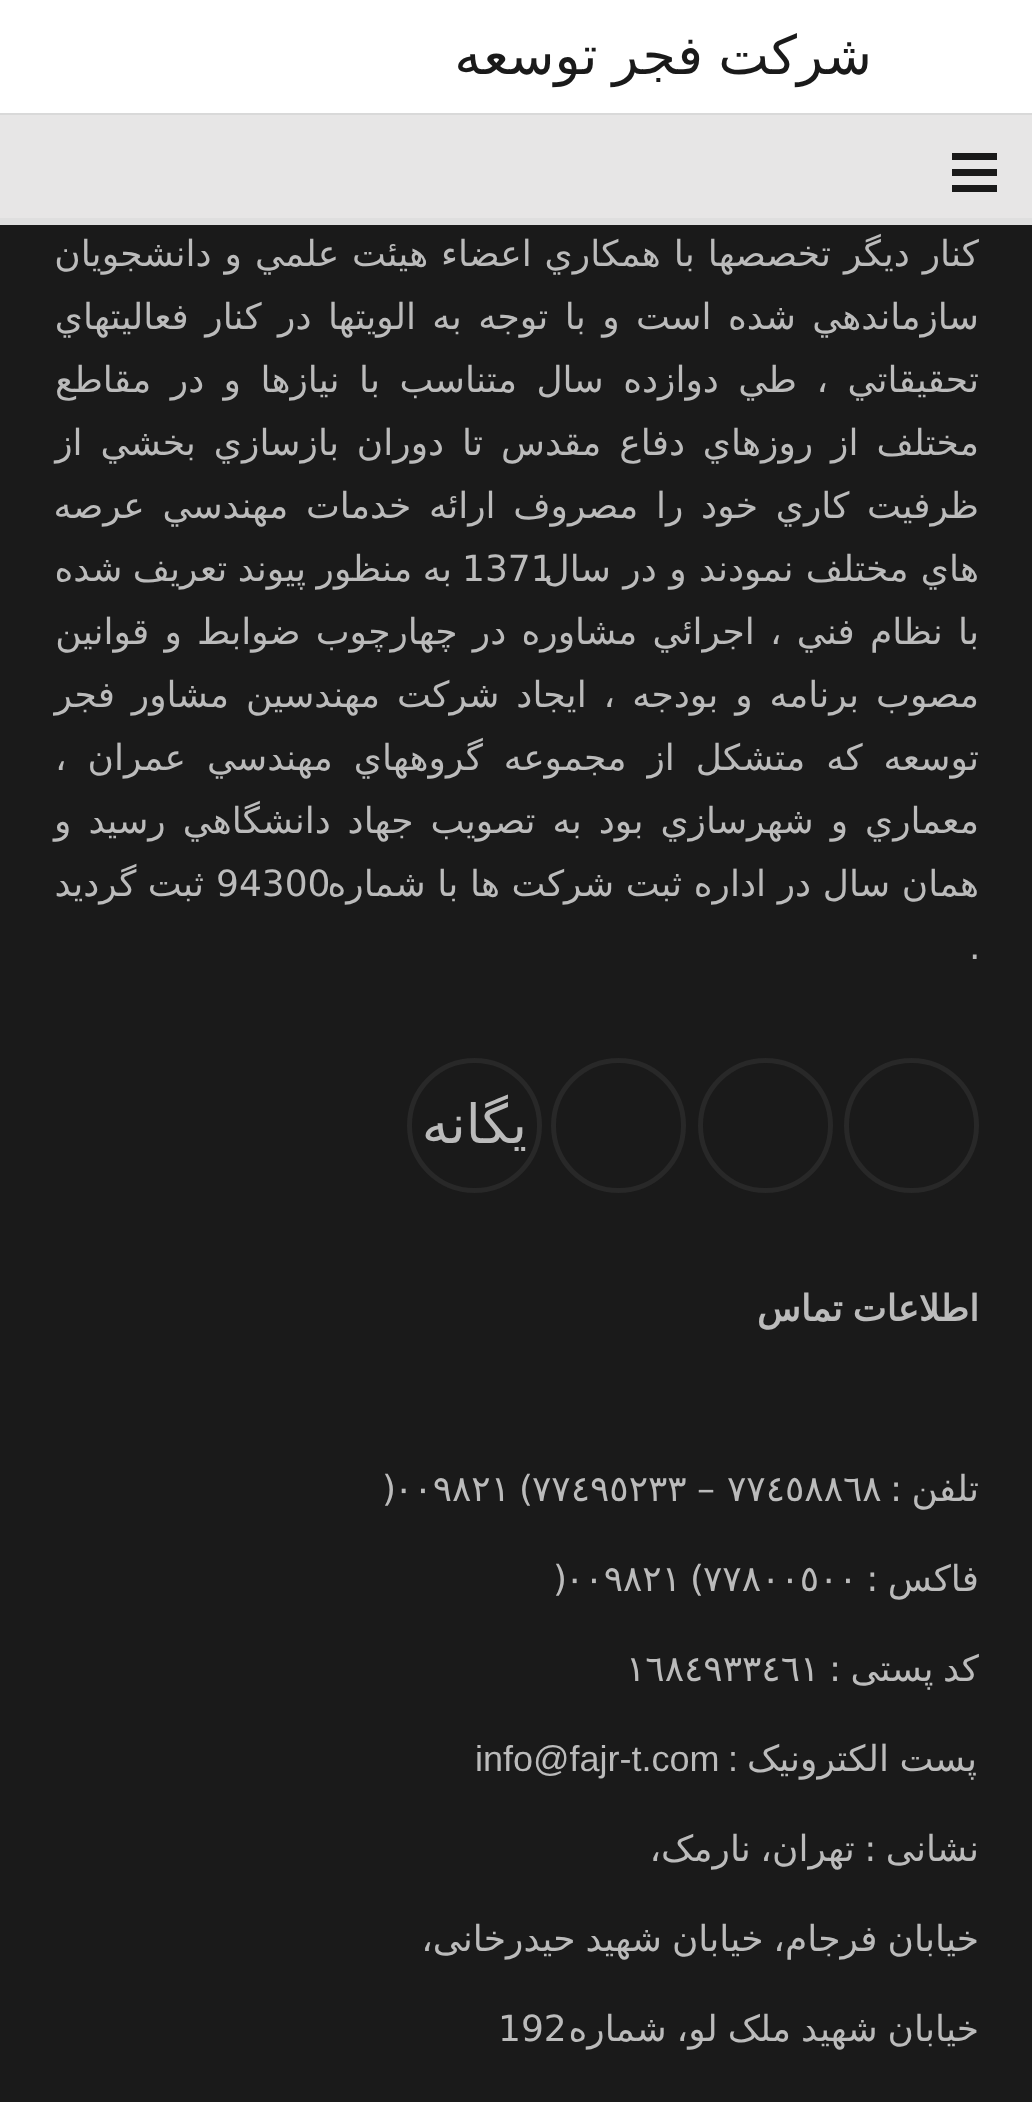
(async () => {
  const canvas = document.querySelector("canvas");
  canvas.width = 1032;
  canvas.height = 2102;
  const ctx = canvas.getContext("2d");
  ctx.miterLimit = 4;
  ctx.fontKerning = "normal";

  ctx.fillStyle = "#1a1a1a";
  ctx.fillRect(0, 0, 1032, 2102);
  for (const [x, y, w, h, color] of [
    [0, 0, 1032, 113, "#ffffff"],
    [0, 115, 1032, 103, "#e7e6e6"],
    [0, 113, 1032, 2, "#d9d9d9"],
    [0, 218, 1032, 7, "#dfdfdf"],
    [952, 169, 45, 7, "#1a1a1a"],
    [952, 153, 45, 7, "#1a1a1a"],
    [952, 185, 45, 7, "#1a1a1a"],
  ]) {
    ctx.fillStyle = color;
    ctx.fillRect(x, y, w, h);
  }
  ctx.beginPath();
  ctx.arc(911.5, 1125.5, 65, 0, Math.PI * 2);
  ctx.strokeStyle = "#282828";
  ctx.lineWidth = 5;
  ctx.stroke();
  ctx.beginPath();
  ctx.arc(765.5, 1125.5, 65, 0, Math.PI * 2);
  ctx.stroke();
  ctx.beginPath();
  ctx.arc(618.5, 1125.5, 65, 0, Math.PI * 2);
  ctx.stroke();
  ctx.beginPath();
  ctx.arc(474.5, 1125.5, 65, 0, Math.PI * 2);
  ctx.stroke();
  ctx.wordSpacing = "-2px";
  ctx.direction = "rtl";
  ctx.font = "54px DejaVu Sans";
  ctx.fillText("شرکت فجر توسعه", 872, 74);
  ctx.wordSpacing = "1.5px";
  ctx.font = "36px DejaVu Sans";
  ctx.fillStyle = "#bbbbbb";
  ctx.fillText("كنار ديگر تخصصها با همكاري اعضاء هيئت علمي و دانشجويان", 979, 266);
  ctx.wordSpacing = "5px";
  ctx.fillText("سازماندهي شده است و با توجه به الويتها در كنار فعاليتهاي", 979, 329);
  ctx.wordSpacing = "8px";
  ctx.fillText("تحقيقاتي ، طي دوازده سال متناسب با نيازها و در مقاطع", 979, 392);
  ctx.wordSpacing = "6.5px";
  ctx.fillText("مختلف از روزهاي دفاع مقدس تا دوران بازسازي بخشي از", 979, 455);
  ctx.wordSpacing = "6.25px";
  ctx.fillText("ظرفيت كاري خود را مصروف ارائه خدمات مهندسي عرصه", 979, 518);
  ctx.wordSpacing = "0px";
  ctx.direction = "ltr";
  ctx.fillText("1371", 462, 581);
  ctx.wordSpacing = "1px";
  ctx.direction = "rtl";
  ctx.fillText("هاي مختلف نمودند و در سال", 979, 581);
  ctx.wordSpacing = "-1px";
  ctx.fillText("به منظور پيوند تعريف شده", 452, 581);
  ctx.wordSpacing = "3.75px";
  ctx.fillText("با نظام فني ، اجرائي مشاوره در چهارچوب ضوابط و قوانين", 979, 644);
  ctx.wordSpacing = "5.5px";
  ctx.fillText("مصوب برنامه و بودجه ، ايجاد شركت مهندسين مشاور فجر", 979, 707);
  ctx.wordSpacing = "9.5px";
  ctx.fillText("توسعه كه متشكل از مجموعه گروههاي مهندسي عمران ،", 979, 770);
  ctx.wordSpacing = "5.5px";
  ctx.fillText("معماري و شهرسازي بود به تصويب جهاد دانشگاهي رسيد و", 979, 833);
  ctx.wordSpacing = "0.25px";
  ctx.fillText("همان سال در اداره ثبت شركت ها با شماره", 979, 896);
  ctx.wordSpacing = "0px";
  ctx.direction = "ltr";
  ctx.fillText("94300", 216, 896);
  ctx.direction = "rtl";
  ctx.fillText("ثبت گرديد", 204, 896);
  ctx.direction = "ltr";
  ctx.fillText(".", 969, 959);
  ctx.direction = "rtl";
  ctx.font = "54px DejaVu Sans";
  ctx.fillText("یگانه", 527, 1143);
  ctx.wordSpacing = "-1.5px";
  ctx.font = "bold 36px DejaVu Sans";
  ctx.fillText("اطلاعات تماس", 979, 1321);
  ctx.wordSpacing = "-2px";
  ctx.font = "36px DejaVu Sans";
  ctx.fillText("تلفن :", 979, 1501);
  ctx.wordSpacing = "0px";
  ctx.direction = "ltr";
  for (const [text, x, y] of [
    ["٧٧٤٥٨٨٦٨", 727, 1501],
    ["–", 697, 1501],
    ["٧٧٤٩٥٢٣٣", 532, 1501],
    ["(", 519, 1501],
    ["٠٠٩٨٢١", 394, 1501],
    [")", 382, 1501],
  ]) {
    ctx.fillText(text, x, y);
  }
  ctx.wordSpacing = "-2px";
  ctx.direction = "rtl";
  ctx.fillText("فاکس :", 979, 1591);
  ctx.wordSpacing = "0px";
  ctx.direction = "ltr";
  for (const [text, x, y] of [
    ["٧٧٨٠٠٥٠٠", 703, 1591],
    ["(", 690, 1591],
    ["٠٠٩٨٢١", 565, 1591],
    [")", 553, 1591],
  ]) {
    ctx.fillText(text, x, y);
  }
  ctx.wordSpacing = "-2px";
  ctx.direction = "rtl";
  ctx.fillText("کد پستی :", 979, 1681);
  ctx.wordSpacing = "0px";
  ctx.direction = "ltr";
  ctx.fillText("١٦٨٤٩٣٣٤٦١", 626, 1681);
  ctx.wordSpacing = "-1px";
  ctx.direction = "rtl";
  ctx.fillText("پست الکترونیک", 977, 1771);
  ctx.wordSpacing = "0px";
  ctx.font = "36px Liberation Sans";
  ctx.fillText(":", 738, 1771);
  ctx.direction = "ltr";
  ctx.fillText("info@fajr-t.com", 475, 1771);
  ctx.wordSpacing = "-2px";
  ctx.direction = "rtl";
  ctx.font = "36px DejaVu Sans";
  ctx.fillText("نشانی : تهران، نارمک،", 979, 1861);
  ctx.wordSpacing = "-1.5px";
  ctx.fillText("خیابان فرجام، خیابان شهید حیدرخانی،", 979, 1951);
  ctx.fillText("خیابان شهید ملک لو، شماره", 979, 2041);
  ctx.wordSpacing = "0px";
  ctx.direction = "ltr";
  ctx.fillText("192", 498, 2041);
})();
